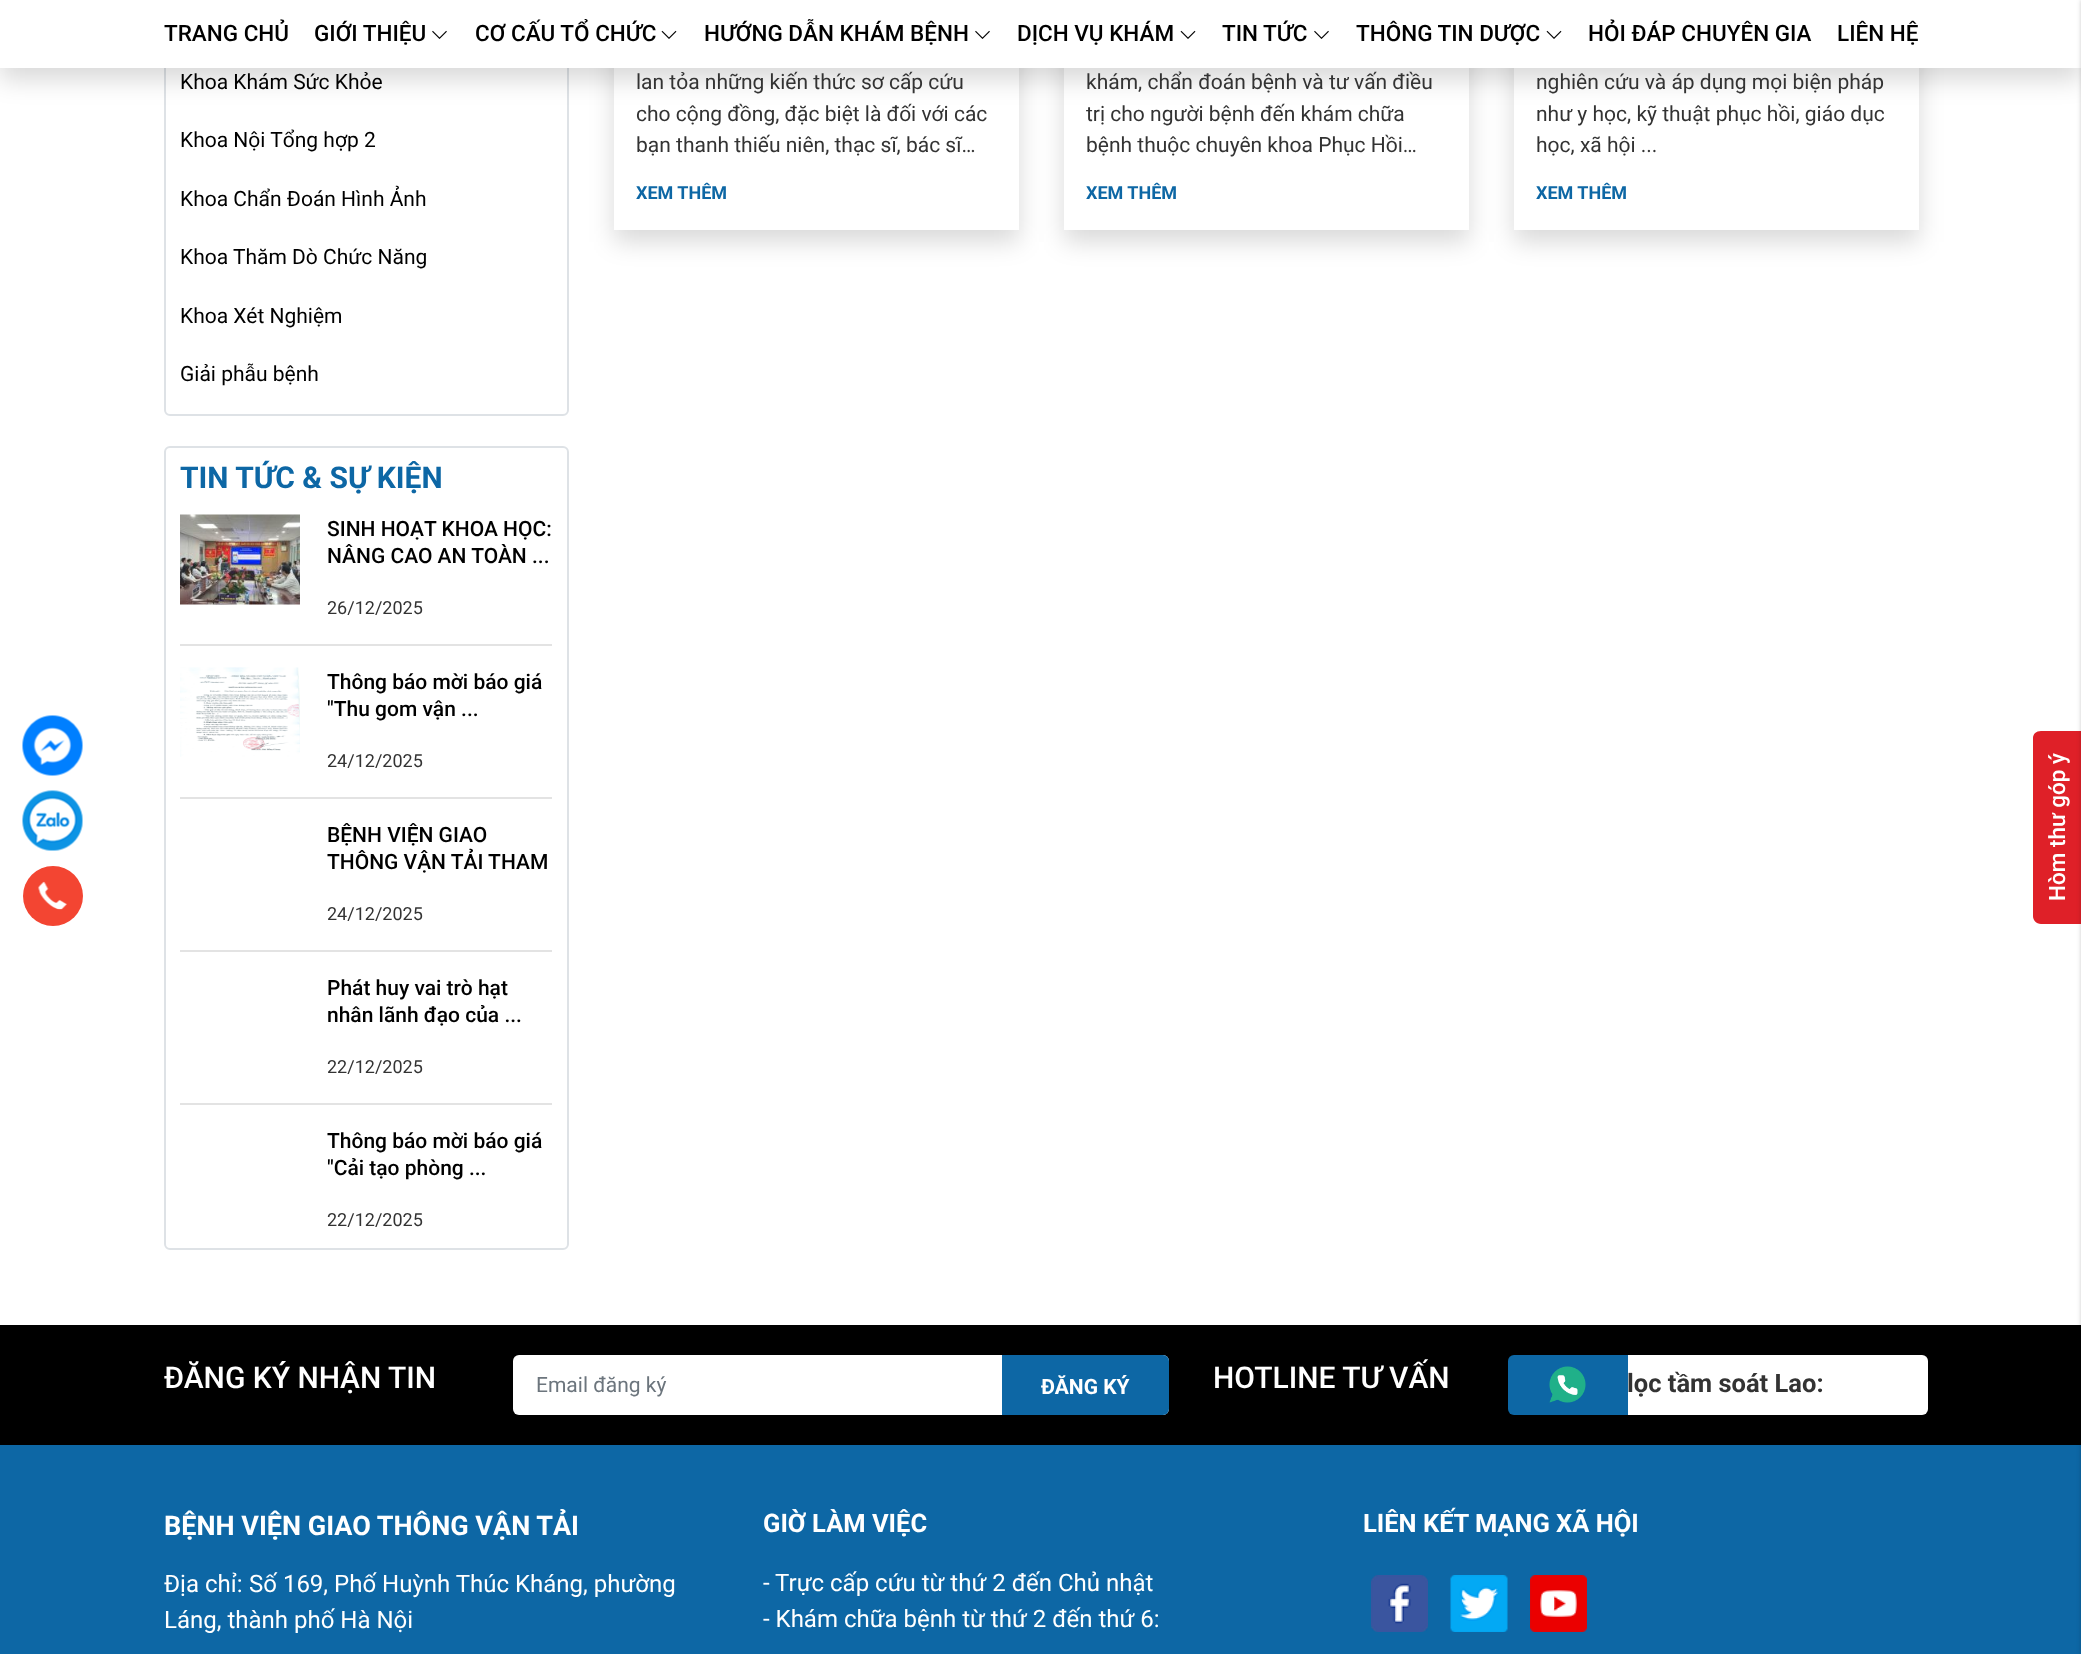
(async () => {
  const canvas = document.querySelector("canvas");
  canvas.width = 2081;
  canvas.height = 1654;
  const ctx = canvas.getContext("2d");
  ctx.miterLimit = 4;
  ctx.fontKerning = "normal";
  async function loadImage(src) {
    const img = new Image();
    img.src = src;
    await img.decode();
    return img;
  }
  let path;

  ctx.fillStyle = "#ffffff";
  ctx.fillRect(0, 0, 2081, 1654);
  ctx.beginPath();
  ctx.roundRect(165, -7, 403, 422, 5);
  ctx.strokeStyle = "#dee2e6";
  ctx.lineWidth = 2;
  ctx.stroke();
  ctx.fillStyle = "rgba(0, 0, 0, 0.15)";
  ctx.filter = "blur(12px)";
  ctx.beginPath();
  ctx.rect(614, -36, 405, 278);
  ctx.fill();
  ctx.filter = "none";
  ctx.fillStyle = "#ffffff";
  ctx.fillRect(614, 68, 405, 162);
  ctx.fillStyle = "rgba(0, 0, 0, 0.15)";
  ctx.filter = "blur(12px)";
  ctx.beginPath();
  ctx.rect(1064, -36, 405, 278);
  ctx.fill();
  ctx.filter = "none";
  ctx.fillStyle = "#ffffff";
  ctx.fillRect(1064, 68, 405, 162);
  ctx.fillStyle = "rgba(0, 0, 0, 0.15)";
  ctx.filter = "blur(12px)";
  ctx.beginPath();
  ctx.rect(1514, -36, 405, 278);
  ctx.fill();
  ctx.filter = "none";
  ctx.fillStyle = "#ffffff";
  ctx.fillRect(1514, 68, 405, 162);
  ctx.fillStyle = "rgba(0, 0, 0, 0.15)";
  ctx.filter = "blur(12px)";
  ctx.beginPath();
  ctx.rect(0, 12, 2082, 68);
  ctx.fill();
  ctx.filter = "none";
  ctx.fillStyle = "#ffffff";
  ctx.fillRect(0, 0, 2081, 68);
  ctx.drawImage(await loadImage("img/1.png"), 432, 30, 15, 9);
  ctx.drawImage(await loadImage("img/2.png"), 661, 30, 16, 9);
  ctx.drawImage(await loadImage("img/1.png"), 975, 30, 15, 9);
  ctx.drawImage(await loadImage("img/2.png"), 1180, 30, 16, 9);
  ctx.drawImage(await loadImage("img/1.png"), 1314, 30, 15, 9);
  ctx.drawImage(await loadImage("img/2.png"), 1546, 30, 16, 9);
  ctx.fillStyle = "#0d67a5";
  ctx.fillRect(0, 1445, 2081, 209);
  ctx.fillStyle = "#df2028";
  path = new Path2D("M2033 916V738C2033 734 2036 731 2041 731H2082V924H2041C2036 924 2033 920 2033 916Z");
  ctx.fill(path);
  ctx.fillStyle = "#000000";
  ctx.fillRect(0, 1325, 2081, 120);
  ctx.fillStyle = "rgba(0, 0, 0, 0.2)";
  ctx.filter = "blur(2px)";
  ctx.beginPath();
  ctx.rect(2081, 0, 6, 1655);
  ctx.fill();
  ctx.filter = "none";
  ctx.beginPath();
  ctx.roundRect(165, 447, 403, 802, 5);
  ctx.stroke();
  ctx.fillStyle = "#e3e3e3";
  ctx.fillRect(180, 644, 372, 2);
  ctx.drawImage(await loadImage("img/3.png"), 180, 514, 120, 91);
  ctx.fillRect(180, 797, 372, 2);
  ctx.drawImage(await loadImage("img/4.png"), 180, 667, 120, 90);
  ctx.fillRect(180, 950, 372, 2);
  ctx.fillRect(180, 1103, 372, 2);
  ctx.drawImage(await loadImage("img/5.png"), 22, 715, 61, 61);
  ctx.drawImage(await loadImage("img/6.png"), 22, 790, 61, 61);
  ctx.fillStyle = "#f34532";
  ctx.beginPath();
  ctx.arc(53, 896, 30, 0, Math.PI * 2);
  ctx.fill();
  ctx.drawImage(await loadImage("img/7.png"), 38, 881, 29, 29);
  ctx.fillStyle = "#ffffff";
  ctx.beginPath();
  ctx.roundRect(513, 1355, 656, 60, 6);
  ctx.fill();
  ctx.fillStyle = "#0d67a5";
  ctx.beginPath();
  ctx.roundRect(1002, 1355, 167, 60, [0, 6, 6, 0]);
  ctx.fill();
  ctx.beginPath();
  ctx.roundRect(1508, 1355, 120, 60, [6, 0, 0, 6]);
  ctx.fill();
  ctx.drawImage(await loadImage("img/8.png"), 1549, 1366, 37, 37);
  ctx.fillStyle = "#ffffff";
  ctx.beginPath();
  ctx.roundRect(1628, 1355, 300, 60, [0, 6, 6, 0]);
  ctx.fill();
  ctx.drawImage(await loadImage("img/9.png"), 1371, 1575, 57, 57);
  ctx.drawImage(await loadImage("img/10.png"), 1450, 1575, 58, 57);
  ctx.drawImage(await loadImage("img/11.png"), 1530, 1575, 57, 57);
  ctx.font = "500 22.5px Roboto";
  ctx.fillStyle = "#000000";
  for (const [text, x, y] of [
    ["TRANG CHỦ", 164, 41],
    ["GIỚI THIỆU", 314, 41],
    ["CƠ CẤU TỔ CHỨC", 475, 41],
    ["HƯỚNG DẪN KHÁM BỆNH", 704, 41],
    ["DỊCH VỤ KHÁM", 1017, 41],
    ["TIN TỨC", 1222, 41],
    ["THÔNG TIN DƯỢC", 1356, 41],
    ["HỎI ĐÁP CHUYÊN GIA", 1588, 41],
    ["LIÊN HỆ", 1837, 41],
  ]) {
    ctx.fillText(text, x, y);
  }
  ctx.font = "21px Roboto";
  for (const [text, x, y] of [
    ["Khoa Khám Sức Khỏe", 180, 89],
    ["Khoa Nội Tổng hợp 2", 180, 147],
    ["Khoa Chẩn Đoán Hình Ảnh", 180, 206],
    ["Khoa Thăm Dò Chức Năng", 180, 264],
    ["Khoa Xét Nghiệm", 180, 323],
    ["Giải phẫu bệnh", 180, 381],
  ]) {
    ctx.fillText(text, x, y);
  }
  ctx.font = "bold 30px Roboto";
  ctx.fillStyle = "#0d67a5";
  ctx.fillText("TIN TỨC & SỰ KIỆN", 180, 488);
  ctx.font = "500 21px Roboto";
  ctx.fillStyle = "#000000";
  ctx.fillText("SINH HOẠT KHOA HỌC:", 327, 536);
  ctx.fillText("NÂNG CAO AN TOÀN ...", 327, 563);
  ctx.font = "18px Roboto";
  ctx.fillStyle = "#333333";
  ctx.fillText("26/12/2025", 327, 614);
  ctx.font = "500 21px Roboto";
  ctx.fillStyle = "#000000";
  ctx.fillText("Thông báo mời báo giá", 327, 689);
  ctx.fillText("\"Thu gom vận ...", 327, 716);
  ctx.font = "18px Roboto";
  ctx.fillStyle = "#333333";
  ctx.fillText("24/12/2025", 327, 767);
  ctx.font = "500 21px Roboto";
  ctx.fillStyle = "#000000";
  ctx.fillText("BỆNH VIỆN GIAO", 327, 842);
  ctx.fillText("THÔNG VẬN TẢI THAM", 327, 869);
  ctx.font = "18px Roboto";
  ctx.fillStyle = "#333333";
  ctx.fillText("24/12/2025", 327, 920);
  ctx.font = "500 21px Roboto";
  ctx.fillStyle = "#000000";
  ctx.fillText("Phát huy vai trò hạt", 327, 995);
  ctx.fillText("nhân lãnh đạo của ...", 327, 1022);
  ctx.font = "18px Roboto";
  ctx.fillStyle = "#333333";
  ctx.fillText("22/12/2025", 327, 1073);
  ctx.font = "500 21px Roboto";
  ctx.fillStyle = "#000000";
  ctx.fillText("Thông báo mời báo giá", 327, 1148);
  ctx.fillText("\"Cải tạo phòng ...", 327, 1175);
  ctx.font = "18px Roboto";
  ctx.fillStyle = "#333333";
  ctx.fillText("22/12/2025", 327, 1226);
  ctx.font = "21px Roboto";
  for (const [text, x, y] of [
    ["lan tỏa những kiến thức sơ cấp cứu", 636, 89],
    ["cho cộng đồng, đặc biệt là đối với các", 636, 121],
    ["bạn thanh thiếu niên, thạc sĩ, bác sĩ…", 636, 152],
  ]) {
    ctx.fillText(text, x, y);
  }
  ctx.font = "bold 18px Roboto";
  ctx.fillStyle = "#0d67a5";
  ctx.fillText("XEM THÊM", 636, 199);
  ctx.font = "21px Roboto";
  ctx.fillStyle = "#333333";
  for (const [text, x, y] of [
    ["khám, chẩn đoán bệnh và tư vấn điều", 1086, 89],
    ["trị cho người bệnh đến khám chữa", 1086, 121],
    ["bệnh thuộc chuyên khoa Phục Hồi…", 1086, 152],
  ]) {
    ctx.fillText(text, x, y);
  }
  ctx.font = "bold 18px Roboto";
  ctx.fillStyle = "#0d67a5";
  ctx.fillText("XEM THÊM", 1086, 199);
  ctx.font = "21px Roboto";
  ctx.fillStyle = "#333333";
  for (const [text, x, y] of [
    ["nghiên cứu và áp dụng mọi biện pháp", 1536, 89],
    ["như y học, kỹ thuật phục hồi, giáo dục", 1536, 121],
    ["học, xã hội ...", 1536, 152],
  ]) {
    ctx.fillText(text, x, y);
  }
  ctx.font = "bold 18px Roboto";
  ctx.fillStyle = "#0d67a5";
  ctx.fillText("XEM THÊM", 1536, 199);
  ctx.font = "500 22.5px Roboto";
  ctx.fillStyle = "#ffffff";
  ctx.save();
  ctx.translate(2065, 901);
  ctx.rotate(-90 * Math.PI / 180);
  ctx.fillText("Hòm thư góp ý", 0, 0);
  ctx.restore();
  ctx.font = "500 30px Roboto";
  ctx.fillText("ĐĂNG KÝ NHẬN TIN", 164, 1388);
  ctx.font = "21px Roboto";
  ctx.fillStyle = "#6c757d";
  ctx.fillText("Email đăng ký", 536, 1392);
  ctx.font = "bold 21px Roboto";
  ctx.fillStyle = "#ffffff";
  ctx.fillText("ĐĂNG KÝ", 1041, 1394);
  ctx.font = "500 30px Roboto";
  ctx.fillText("HOTLINE TƯ VẤN", 1213, 1388);
  ctx.font = "bold 25.5px Roboto";
  ctx.fillStyle = "#333333";
  ctx.fillText("lọc tầm soát Lao:", 1627, 1392);
  ctx.font = "bold 27px Roboto";
  ctx.fillStyle = "#ffffff";
  ctx.fillText("BỆNH VIỆN GIAO THÔNG VẬN TẢI", 164, 1535);
  ctx.font = "24px Roboto";
  for (const [text, x, y] of [
    ["Địa chỉ:", 164, 1592],
    ["Số 169, Phố Huỳnh Thúc Kháng, phường", 249, 1592],
    ["Láng, thành phố Hà Nội", 164, 1628],
  ]) {
    ctx.fillText(text, x, y);
  }
  ctx.font = "bold 25.5px Roboto";
  ctx.fillText("GIỜ LÀM VIỆC", 763, 1532);
  ctx.font = "24px Roboto";
  ctx.fillText("- Trực cấp cứu từ thứ 2 đến Chủ nhật", 763, 1591);
  ctx.fillText("- Khám chữa bệnh từ thứ 2 đến thứ 6:", 763, 1627);
  ctx.font = "bold 25.5px Roboto";
  ctx.fillText("LIÊN KẾT MẠNG XÃ HỘI", 1363, 1532);
})();
